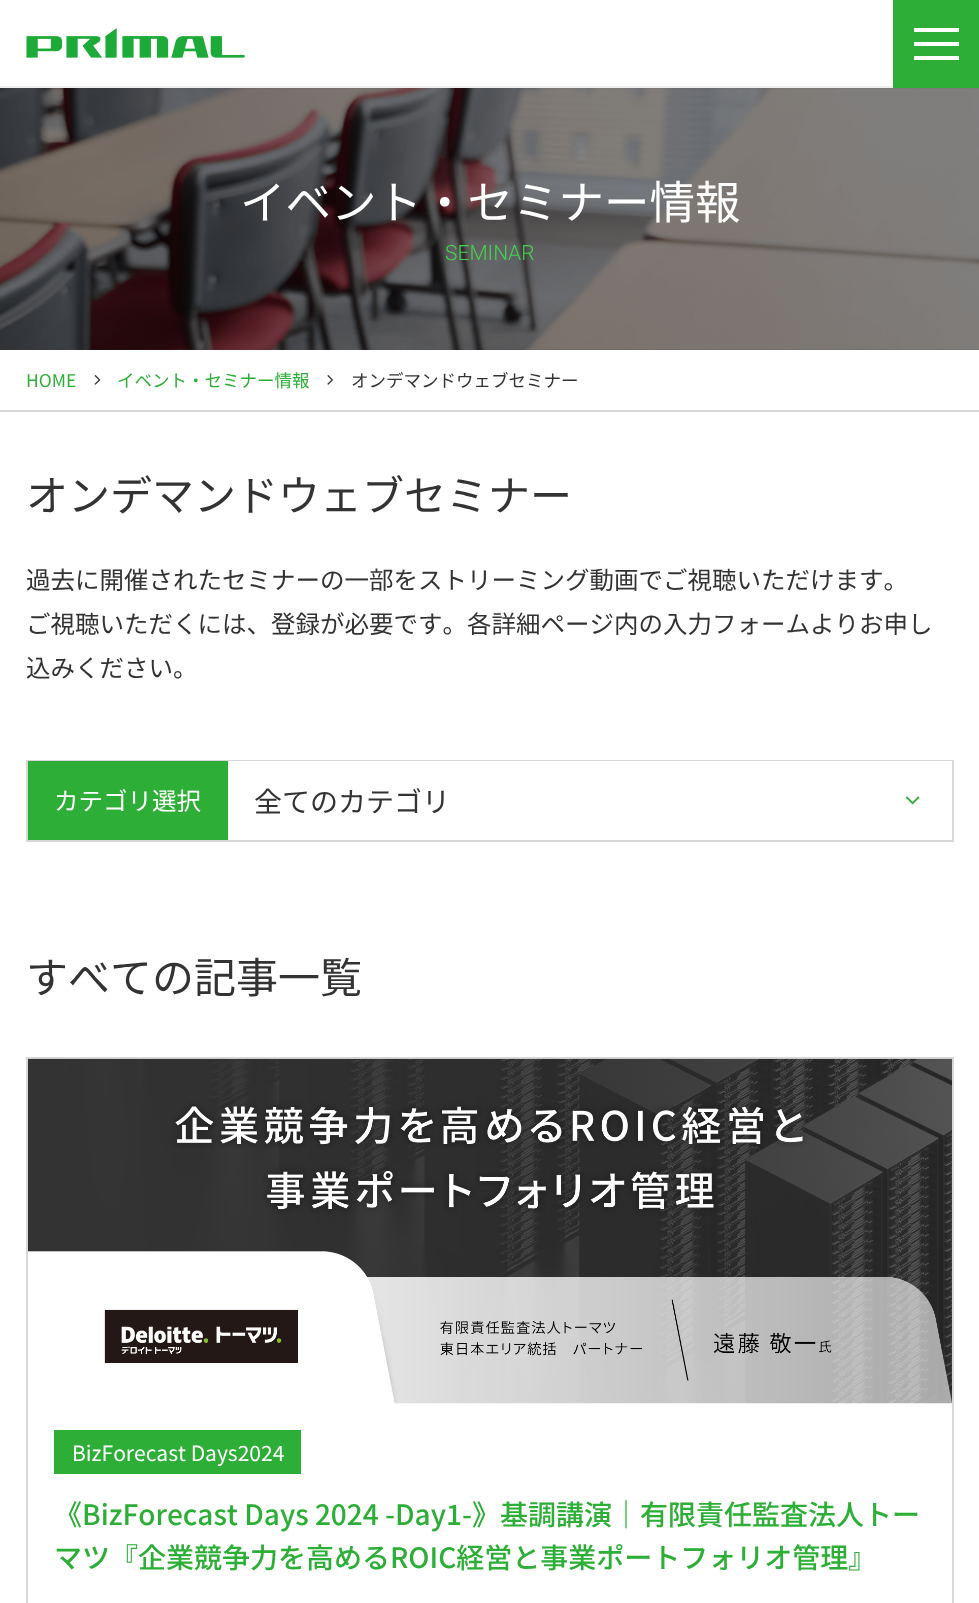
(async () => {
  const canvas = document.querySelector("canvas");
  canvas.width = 979;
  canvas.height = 1603;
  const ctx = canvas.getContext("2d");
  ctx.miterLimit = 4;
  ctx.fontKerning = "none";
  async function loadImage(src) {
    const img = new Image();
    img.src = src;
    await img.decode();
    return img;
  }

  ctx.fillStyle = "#ffffff";
  ctx.fillRect(0, 0, 979, 1603);
  ctx.fillStyle = "#eeeeee";
  ctx.fillRect(0, 86, 893, 2);
  ctx.drawImage(await loadImage("img/1.png"), 26, 28, 219, 30);
  for (const [x, y, w, h, color] of [
    [893, 0, 86, 88, "#2dae36"],
    [914, 28, 45, 4, "#ffffff"],
    [914, 42, 45, 4, "#ffffff"],
    [914, 56, 45, 4, "#ffffff"],
  ]) {
    ctx.fillStyle = color;
    ctx.fillRect(x, y, w, h);
  }
  ctx.drawImage(await loadImage("img/2.png"), 0, 88, 979, 262);
  ctx.fillStyle = "#d7d7d7";
  ctx.fillRect(0, 410, 979, 2);
  ctx.drawImage(await loadImage("img/3.png"), 94, 375, 7, 10);
  ctx.drawImage(await loadImage("img/4.png"), 327, 375, 6, 10);
  ctx.strokeStyle = "#d7d7d7";
  ctx.lineWidth = 2;
  ctx.strokeRect(27, 761, 926, 80);
  ctx.fillStyle = "#2dae36";
  ctx.fillRect(28, 761, 200, 79);
  ctx.fillStyle = "#ffffff";
  ctx.fillRect(228, 761, 724, 1);
  ctx.drawImage(await loadImage("img/5.png"), 905, 796, 15, 9);
  ctx.strokeRect(27, 1058, 926, 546);
  ctx.drawImage(await loadImage("img/6.png"), 28, 1058, 924, 346);
  ctx.fillStyle = "#2dae36";
  ctx.fillRect(54, 1430, 247, 44);
  ctx.font = "45.5px Noto Sans JP";
  ctx.fillStyle = "#ffffff";
  ctx.fillText("イベント・セミナー情報", 240, 219);
  ctx.font = "300 21px Roboto";
  ctx.fillStyle = "#45d34f";
  ctx.fillText("SEMINAR", 445, 260);
  ctx.font = "17.5px Noto Sans JP";
  ctx.fillStyle = "#2dae36";
  ctx.fillText("HOME", 26, 387);
  ctx.fillText("イベント・セミナー情報", 117, 387);
  ctx.fillStyle = "#333333";
  ctx.fillText("オンデマンドウェブセミナー", 351, 387);
  ctx.font = "42px Noto Sans JP";
  ctx.fillText("オンデマンドウェブセミナー", 26, 511);
  ctx.font = "24.5px Noto Sans JP";
  for (const [text, x, y] of [
    ["過去に開催されたセミナーの一部をストリーミング動画でご視聴いただけます。", 26, 589],
    ["ご視聴いただくには、登録が必要です。各詳細ページ内の入力フォームよりお申し", 26, 633],
    ["込みください。", 26, 677],
  ]) {
    ctx.fillText(text, x, y);
  }
  ctx.fillStyle = "#ffffff";
  ctx.fillText("カテゴリ選択", 54, 810);
  ctx.font = "28px Noto Sans JP";
  ctx.fillStyle = "#333333";
  ctx.fillText("全てのカテゴリ", 254, 812);
  ctx.font = "42px Noto Sans JP";
  ctx.fillText("すべての記事一覧", 26, 993);
  ctx.font = "21px Noto Sans JP";
  ctx.fillStyle = "#ffffff";
  ctx.fillText("BizForecast Days2024", 72, 1461);
  ctx.font = "500 28px Noto Sans JP";
  ctx.fillStyle = "#2dae36";
  ctx.fillText("《BizForecast Days 2024 -Day1-》基調講演｜有限責任監査法人トー", 54, 1525);
  ctx.fillText("マツ『企業競争力を高めるROIC経営と事業ポートフォリオ管理』", 54, 1568);
})();
